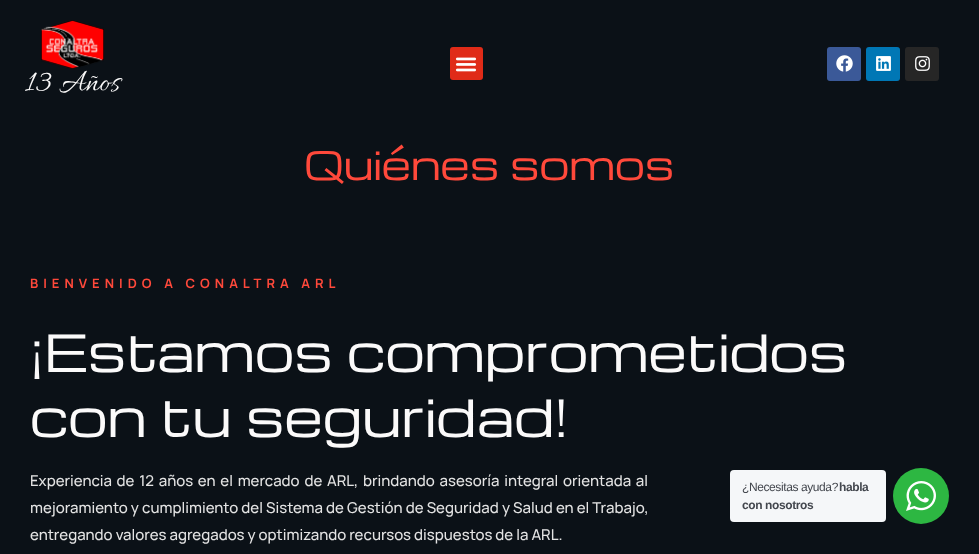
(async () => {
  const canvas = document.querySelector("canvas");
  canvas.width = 979;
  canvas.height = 554;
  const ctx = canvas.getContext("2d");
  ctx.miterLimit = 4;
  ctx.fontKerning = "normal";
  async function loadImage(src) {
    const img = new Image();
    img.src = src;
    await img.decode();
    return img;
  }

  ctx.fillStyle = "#0b1117";
  ctx.fillRect(0, 0, 979, 554);
  ctx.drawImage(await loadImage("img/1.png"), 41, 20, 63, 49);
  ctx.fillStyle = "#e02b18";
  ctx.beginPath();
  ctx.roundRect(450, 47, 33, 33, 3);
  ctx.fill();
  ctx.drawImage(await loadImage("img/2.png"), 455, 57, 22, 15);
  ctx.fillStyle = "#3b5998";
  ctx.beginPath();
  ctx.roundRect(827, 47, 34, 34, 3);
  ctx.fill();
  ctx.drawImage(await loadImage("img/3.png"), 836, 55, 17, 17);
  ctx.fillStyle = "#0077b5";
  ctx.beginPath();
  ctx.roundRect(866, 47, 34, 34, 3);
  ctx.fill();
  ctx.drawImage(await loadImage("img/4.png"), 876, 56, 15, 15);
  ctx.fillStyle = "#262626";
  ctx.beginPath();
  ctx.roundRect(905, 47, 34, 34, 3);
  ctx.fill();
  ctx.drawImage(await loadImage("img/5.png"), 915, 56, 15, 15);
  ctx.fillStyle = "#f5f7f9";
  ctx.beginPath();
  ctx.roundRect(730, 470, 156, 52, 4);
  ctx.fill();
  ctx.fillStyle = "#2db742";
  ctx.beginPath();
  ctx.arc(921, 496, 28, 0, Math.PI * 2);
  ctx.fill();
  ctx.drawImage(await loadImage("img/6.png"), 906, 481, 30, 30);
  ctx.font = "32px Allura";
  ctx.fillStyle = "#fbfafa";
  ctx.fillText("13 Años", 25, 90);
  ctx.font = "38px Michroma";
  ctx.fillStyle = "#ff493b";
  ctx.fillText("Quiénes somos", 304, 180);
  ctx.letterSpacing = "5px";
  ctx.font = "bold 13px Manrope";
  ctx.fillText("BIENVENIDO A CONALTRA ARL", 30, 288);
  ctx.letterSpacing = "0px";
  ctx.font = "50px Michroma";
  ctx.fillStyle = "#fbfafa";
  ctx.fillText("¡Estamos comprometidos", 30, 372);
  ctx.fillText("con tu seguridad!", 30, 437);
  ctx.wordSpacing = "1.75px";
  ctx.font = "500 15px Manrope";
  ctx.fillStyle = "#e3e3e3";
  ctx.fillText("Experiencia de 12 años en el mercado de ARL, brindando asesoría integral orientada al", 30, 486);
  ctx.wordSpacing = "0.1px";
  ctx.fillText("mejoramiento y cumplimiento del Sistema de Gestión de Seguridad y Salud en el Trabajo,", 30, 513);
  ctx.wordSpacing = "0px";
  ctx.fillText("entregando valores agregados y optimizando recursos dispuestos de la ARL.", 30, 540);
  ctx.letterSpacing = "-0.4px";
  ctx.font = "12px Liberation Sans";
  ctx.fillStyle = "#43474e";
  ctx.fillText("¿Necesitas ayuda?", 742, 491);
  ctx.font = "bold 12px Liberation Sans";
  ctx.fillText("habla", 839, 491);
  ctx.fillText("con nosotros", 742, 509);
})();
